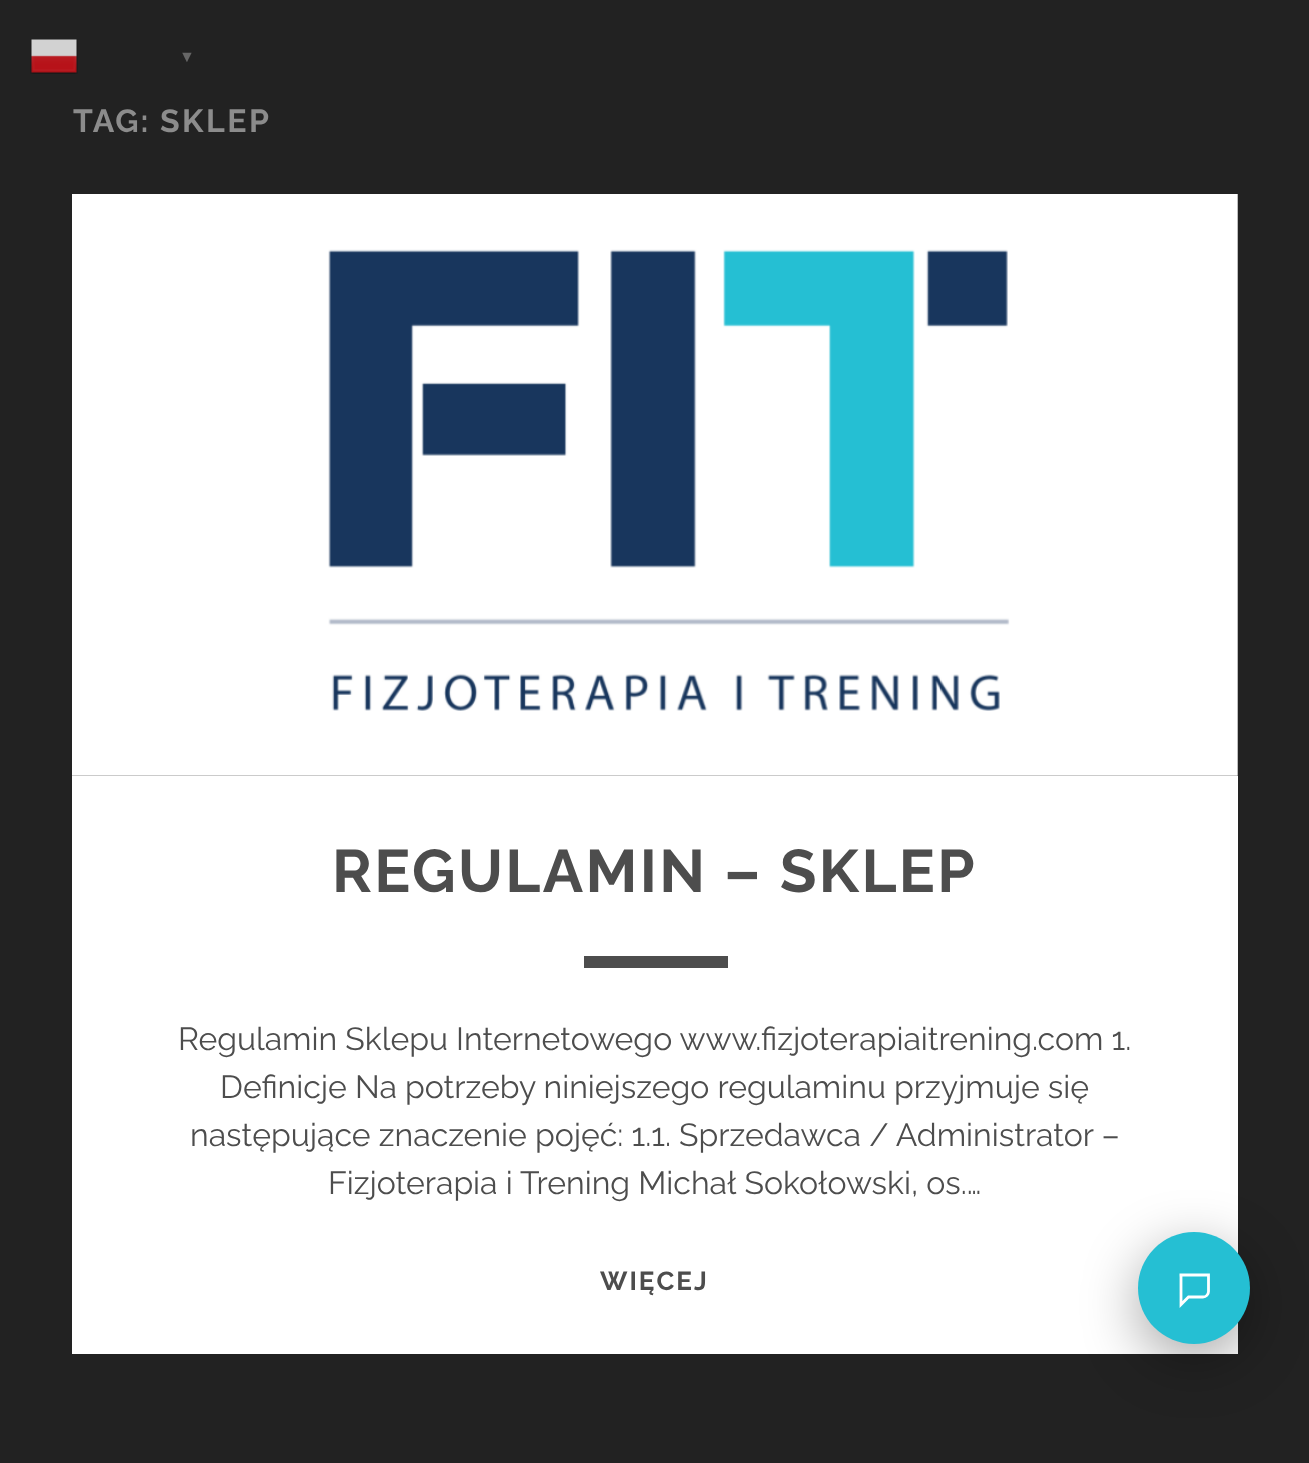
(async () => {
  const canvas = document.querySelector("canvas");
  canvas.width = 1309;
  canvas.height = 1463;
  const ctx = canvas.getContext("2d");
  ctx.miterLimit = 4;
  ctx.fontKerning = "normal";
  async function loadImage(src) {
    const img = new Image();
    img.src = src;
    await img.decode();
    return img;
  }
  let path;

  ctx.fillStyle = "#222222";
  ctx.fillRect(0, 0, 1309, 1463);
  ctx.drawImage(await loadImage("img/1.png"), 30, 39, 48, 35);
  ctx.fillStyle = "#111111";
  ctx.fillRect(72, 194, 1166, 582);
  ctx.drawImage(await loadImage("img/2.png"), 72, 194, 1166, 582);
  ctx.fillStyle = "#ffffff";
  ctx.fillRect(72, 776, 1166, 578);
  ctx.fillStyle = "#4d4d4d";
  ctx.fillRect(584, 956, 144, 12);
  ctx.fillStyle = "rgba(0, 0, 0, 0.35)";
  ctx.filter = "blur(28px)";
  ctx.beginPath();
  ctx.roundRect(1138, 1248, 112, 112, 56);
  ctx.fill();
  ctx.filter = "none";
  ctx.fillStyle = "#25bfd3";
  ctx.beginPath();
  ctx.arc(1194, 1288, 56, 0, Math.PI * 2);
  ctx.fill();
  path = new Path2D("M1179.5 1275H1208.5V1291.5C1208.5 1294.5 1206 1297 1203 1297H1188.5L1181 1304.5V1275Z");
  ctx.strokeStyle = "#ffffff";
  ctx.lineWidth = 2.8;
  ctx.stroke(path);
  ctx.font = "bold 16px Liberation Sans";
  ctx.fillStyle = "#666666";
  ctx.fillText("▼", 179, 62);
  ctx.letterSpacing = "2px";
  ctx.font = "bold 32px Raleway";
  ctx.fillStyle = "#8c8c8c";
  ctx.fillText("TAG:", 73, 132);
  ctx.letterSpacing = "2.5px";
  ctx.fillText("SKLEP", 160, 132);
  ctx.letterSpacing = "2.4px";
  ctx.font = "bold 60px Raleway";
  ctx.fillStyle = "#4d4d4d";
  ctx.fillText("REGULAMIN – SKLEP", 332, 892);
  ctx.letterSpacing = "0px";
  ctx.font = "32px Raleway";
  for (const [text, x, y] of [
    ["Regulamin Sklepu Internetowego www.fizjoterapiaitrening.com 1.", 178, 1050],
    ["Definicje Na potrzeby niniejszego regulaminu przyjmuje się", 220, 1098],
    ["następujące znaczenie pojęć: 1.1. Sprzedawca / Administrator –", 190, 1146],
    ["Fizjoterapia i Trening Michał Sokołowski, os.…", 328, 1194],
  ]) {
    ctx.fillText(text, x, y);
  }
  ctx.letterSpacing = "2px";
  ctx.font = "bold 26px Raleway";
  ctx.fillText("WIĘCEJ", 600, 1290);
})();
